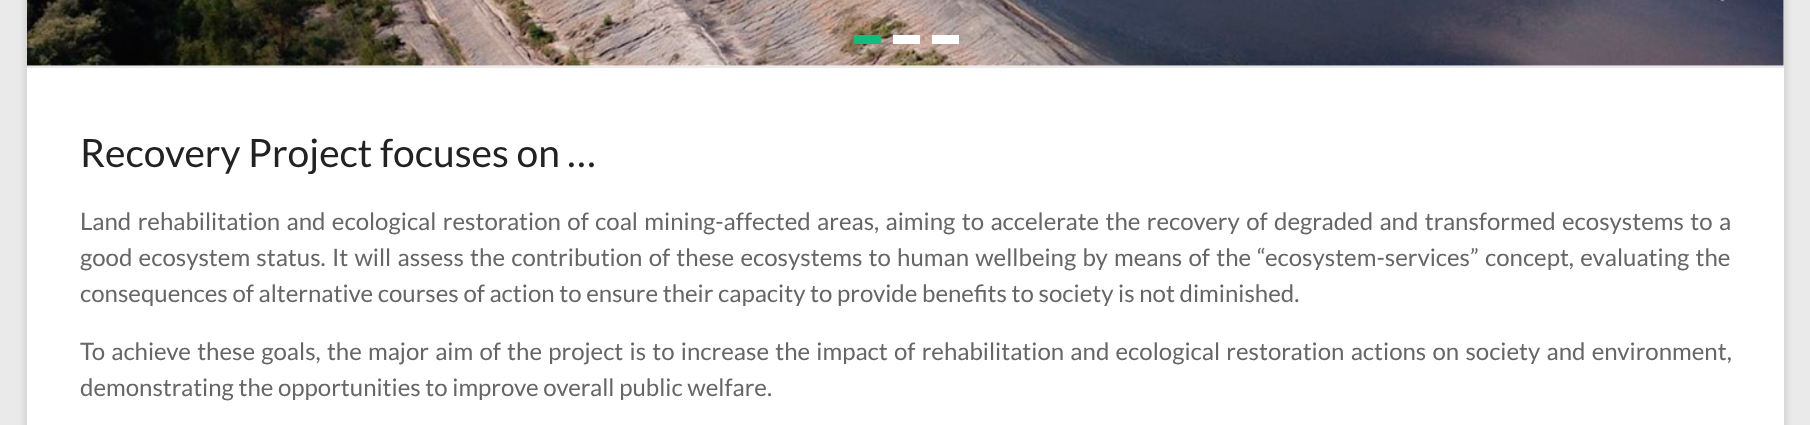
(async () => {
  const canvas = document.querySelector("canvas");
  canvas.width = 1810;
  canvas.height = 425;
  const ctx = canvas.getContext("2d");
  ctx.miterLimit = 4;
  ctx.fontKerning = "normal";
  async function loadImage(src) {
    const img = new Image();
    img.src = src;
    await img.decode();
    return img;
  }

  ctx.fillStyle = "#eaeaea";
  ctx.fillRect(0, 0, 1810, 425);
  ctx.fillStyle = "rgba(100, 100, 100, 0.3)";
  ctx.filter = "blur(4.5px)";
  ctx.beginPath();
  ctx.rect(27, -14, 1757, 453);
  ctx.fill();
  ctx.filter = "none";
  ctx.fillStyle = "#ffffff";
  ctx.fillRect(27, 0, 1757, 425);
  ctx.fillStyle = "#eaeaea";
  ctx.fillRect(27, 66, 1757, 2);
  ctx.drawImage(await loadImage("img/1.png"), 27, 0, 1757, 66);
  for (const [x, y, w, h, color] of [
    [854, 35, 27, 9, "#0fbe7c"],
    [893, 35, 27, 9, "#ffffff"],
    [932, 35, 27, 9, "#ffffff"],
  ]) {
    ctx.fillStyle = color;
    ctx.fillRect(x, y, w, h);
  }
  ctx.font = "39px Lato";
  ctx.fillStyle = "#222222";
  ctx.fillText("Recovery Project focuses on …", 80, 167);
  ctx.wordSpacing = "1.75px";
  ctx.font = "24px Lato";
  ctx.fillStyle = "#666666";
  ctx.fillText("Land rehabilitation and ecological restoration of coal mining-affected areas, aiming to accelerate the recovery of degraded and transformed ecosystems to a", 80, 230);
  ctx.wordSpacing = "1.6px";
  ctx.fillText("good ecosystem status. It will assess the contribution of these ecosystems to human wellbeing by means of the “ecosystem-services” concept, evaluating the", 80, 266);
  ctx.wordSpacing = "0px";
  ctx.fillText("consequences of alternative courses of action to ensure their capacity to provide benefits to society is not diminished.", 80, 302);
  ctx.wordSpacing = "1.6px";
  ctx.fillText("To achieve these goals, the major aim of the project is to increase the impact of rehabilitation and ecological restoration actions on society and environment,", 80, 360);
  ctx.wordSpacing = "0px";
  ctx.fillText("demonstrating the opportunities to improve overall public welfare.", 80, 396);
})();
